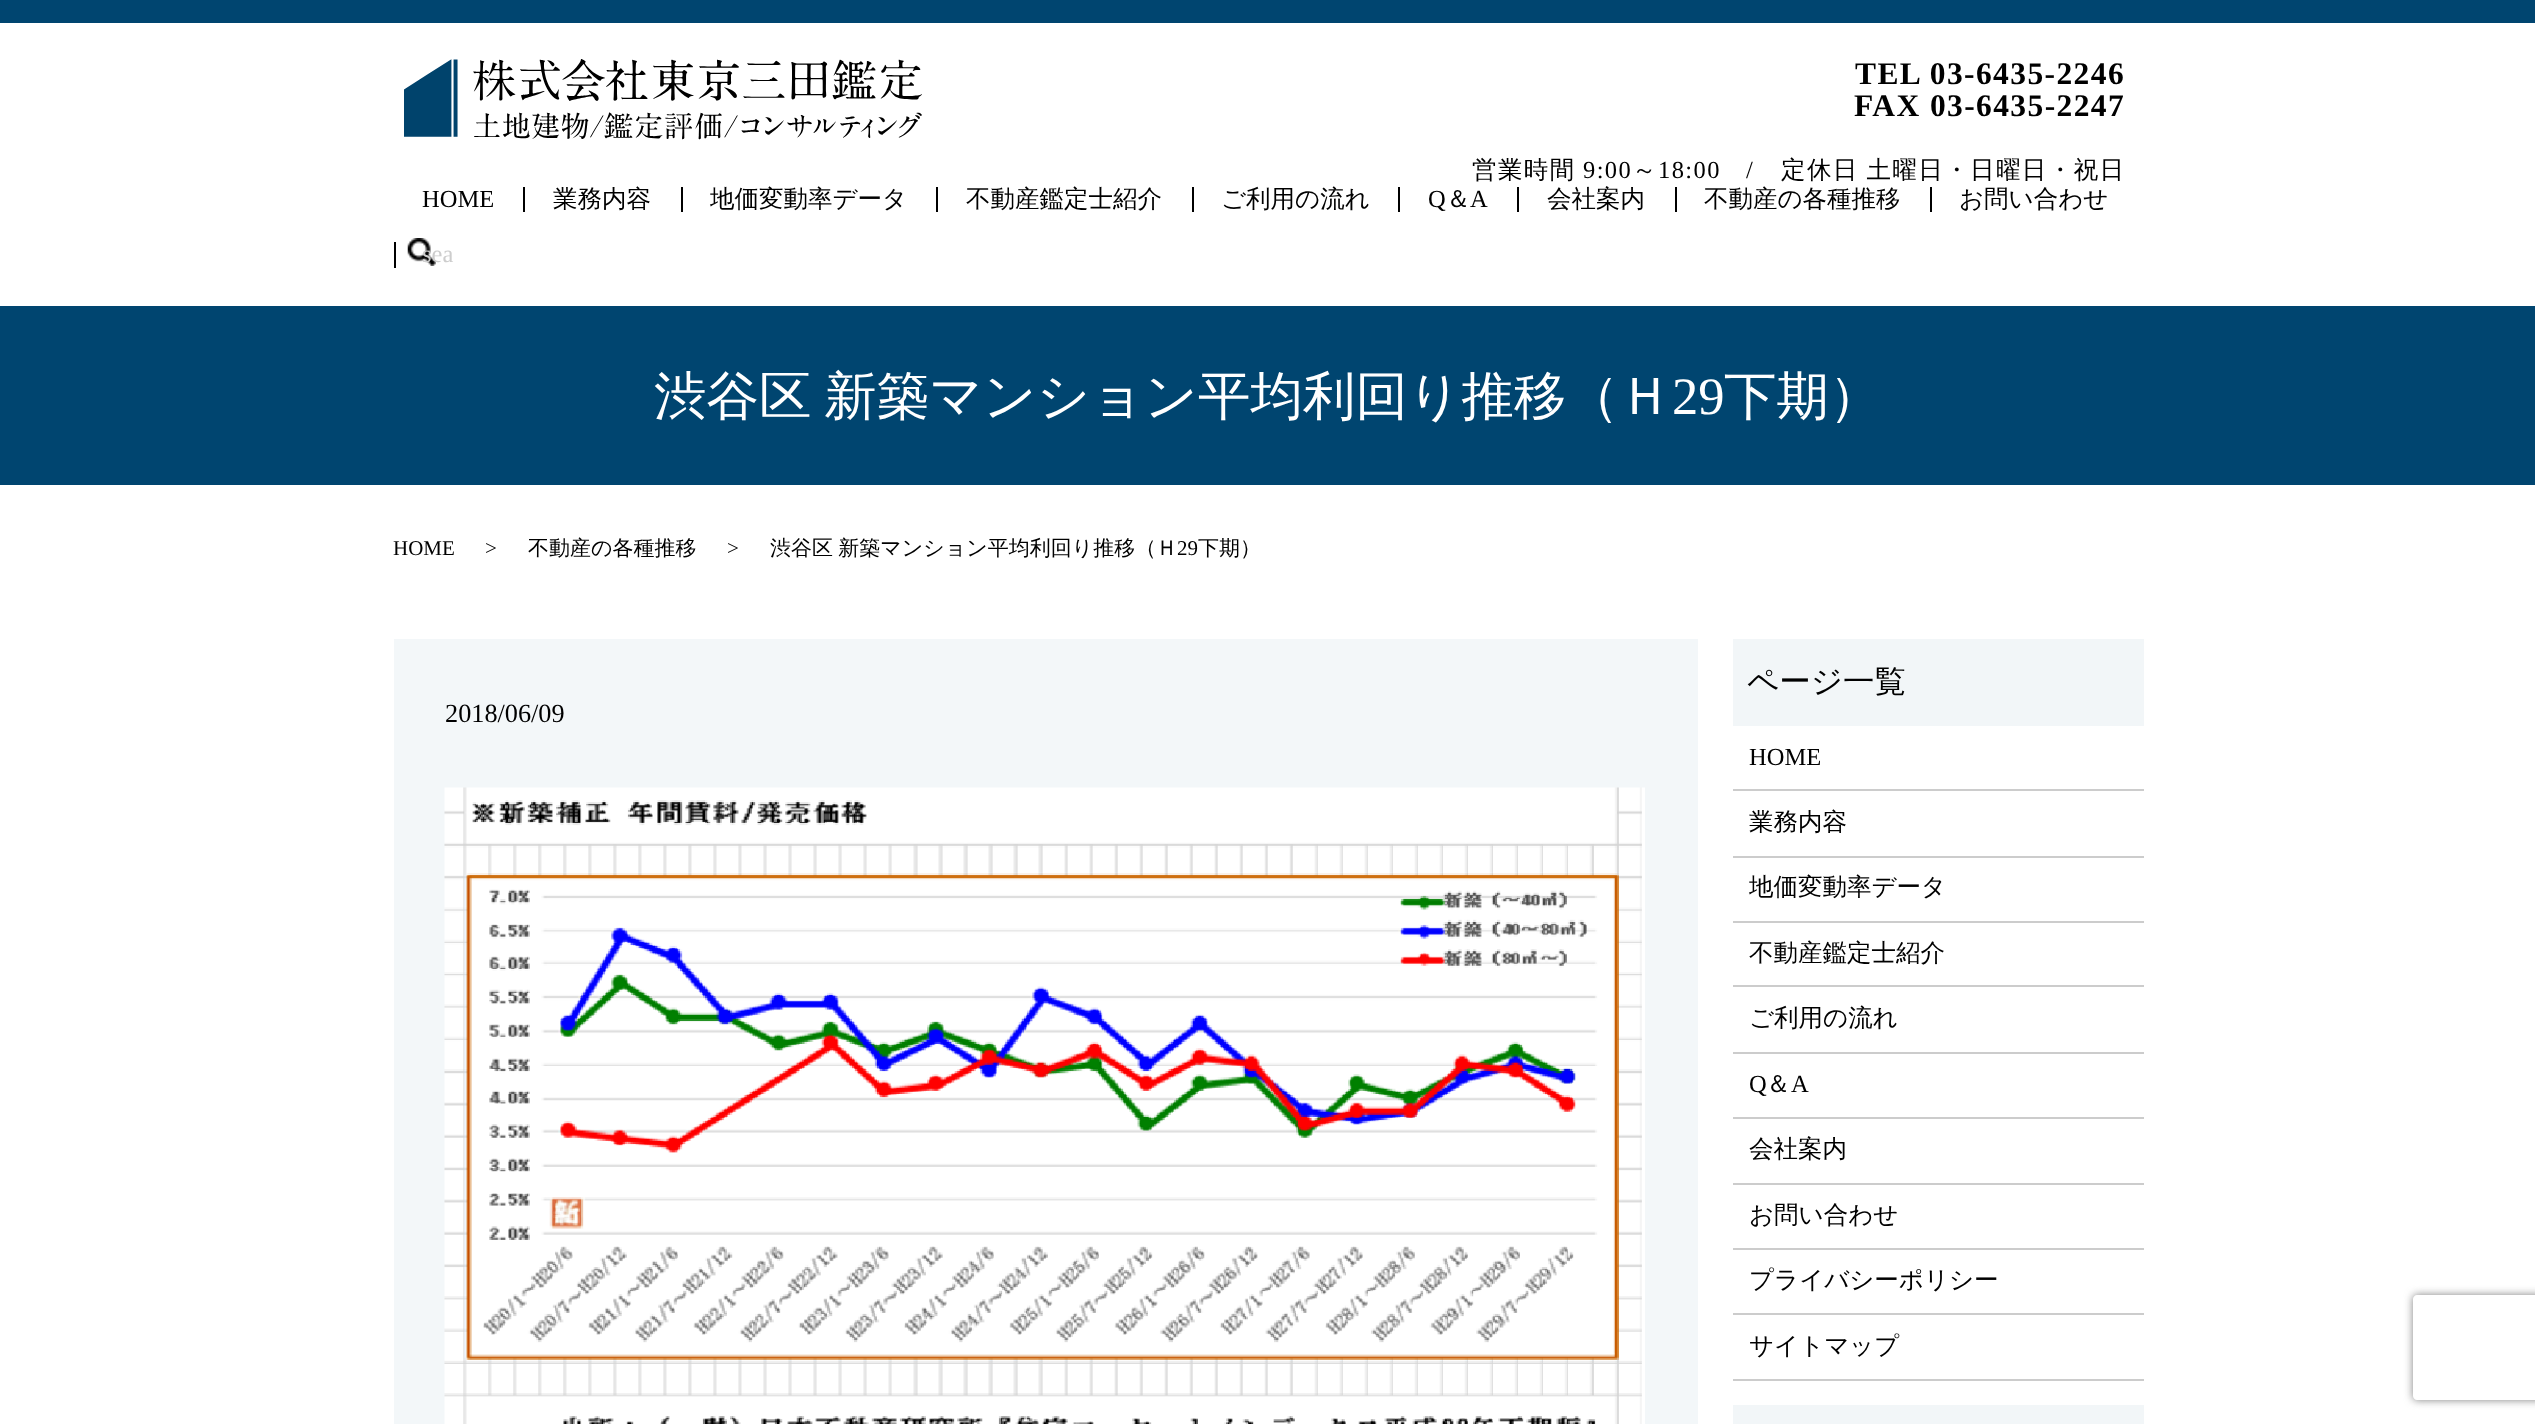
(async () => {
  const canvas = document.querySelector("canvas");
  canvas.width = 2535;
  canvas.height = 1424;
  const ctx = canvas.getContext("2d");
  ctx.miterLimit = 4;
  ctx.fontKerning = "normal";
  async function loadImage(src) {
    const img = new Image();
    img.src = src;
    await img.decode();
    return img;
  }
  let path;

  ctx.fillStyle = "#ffffff";
  ctx.fillRect(0, 0, 2535, 1424);
  ctx.fillStyle = "#004570";
  ctx.fillRect(0, 0, 2535, 23);
  ctx.drawImage(await loadImage("img/1.png"), 404, 59, 518, 81);
  for (const [x, y, w, h, color] of [
    [523, 187, 2, 25, "#000000"],
    [681, 187, 2, 25, "#000000"],
    [936, 187, 2, 25, "#000000"],
    [1192, 187, 2, 25, "#000000"],
    [1398, 187, 2, 25, "#000000"],
    [1517, 187, 2, 25, "#000000"],
    [1675, 187, 2, 25, "#000000"],
    [1930, 187, 2, 25, "#000000"],
  ]) {
    ctx.fillStyle = color;
    ctx.fillRect(x, y, w, h);
  }
  ctx.drawImage(await loadImage("img/2.png"), 407, 238, 29, 28);
  for (const [x, y, w, h, color] of [
    [394, 242, 2, 26, "#000000"],
    [0, 306, 2535, 179, "#004570"],
    [394, 639, 1304, 785, "#f3f7f9"],
  ]) {
    ctx.fillStyle = color;
    ctx.fillRect(x, y, w, h);
  }
  ctx.drawImage(await loadImage("img/3.png"), 444, 787, 1201, 637);
  for (const [x, y, w, h, color] of [
    [1733, 639, 411, 87, "#f2f6f8"],
    [1733, 789, 411, 2, "#cccccc"],
    [1733, 856, 411, 2, "#cccccc"],
    [1733, 921, 411, 2, "#cccccc"],
    [1733, 985, 411, 2, "#cccccc"],
    [1733, 1052, 411, 2, "#cccccc"],
    [1733, 1117, 411, 2, "#cccccc"],
    [1733, 1183, 411, 2, "#cccccc"],
    [1733, 1248, 411, 2, "#cccccc"],
    [1733, 1313, 411, 2, "#cccccc"],
    [1733, 1379, 411, 2, "#cccccc"],
    [1733, 1405, 411, 19, "#f2f6f8"],
  ]) {
    ctx.fillStyle = color;
    ctx.fillRect(x, y, w, h);
  }
  ctx.save();
  path = new Path2D("M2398 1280H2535V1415H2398ZM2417 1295H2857C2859 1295 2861 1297 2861 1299V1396C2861 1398 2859 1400 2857 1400H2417C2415 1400 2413 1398 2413 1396V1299C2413 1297 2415 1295 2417 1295Z");
  ctx.clip(path, "evenodd");
  ctx.fillStyle = "#808080";
  ctx.filter = "blur(4.5px)";
  ctx.beginPath();
  ctx.roundRect(2413, 1295, 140, 105, 4);
  ctx.fill();
  ctx.filter = "none";
  ctx.restore();
  ctx.letterSpacing = "1.4px";
  ctx.font = "bold 31.5px Liberation Serif";
  ctx.fillStyle = "#000000";
  ctx.fillText("TEL 03-6435-2246", 1855, 84);
  ctx.fillText("FAX 03-6435-2247", 1854, 116);
  ctx.font = "500 24.5px WenQuanYi Zen Hei";
  ctx.fillText("営業時間", 1472, 178);
  ctx.font = "24.5px Liberation Serif";
  ctx.fillText("9:00", 1583, 178);
  ctx.font = "500 24.5px WenQuanYi Zen Hei";
  ctx.fillText("～", 1632, 178);
  ctx.font = "24.5px Liberation Serif";
  ctx.fillText("18:00", 1658, 178);
  ctx.fillText("/", 1746, 178);
  ctx.wordSpacing = "-1px";
  ctx.font = "500 24.5px WenQuanYi Zen Hei";
  ctx.fillText("定休日 土曜日・日曜日・祝日", 1781, 178);
  ctx.letterSpacing = "0px";
  ctx.wordSpacing = "0px";
  ctx.font = "24.5px Liberation Serif";
  ctx.fillText("HOME", 422, 207);
  ctx.font = "500 24.5px WenQuanYi Zen Hei";
  for (const [text, x, y] of [
    ["業務内容", 553, 207],
    ["地価変動率データ", 710, 207],
    ["不動産鑑定士紹介", 966, 207],
    ["ご利用の流れ", 1221, 207],
  ]) {
    ctx.fillText(text, x, y);
  }
  ctx.font = "24.5px Liberation Serif";
  ctx.fillText("Q", 1428, 207);
  ctx.font = "500 24.5px WenQuanYi Zen Hei";
  ctx.fillText("＆", 1446, 207);
  ctx.font = "24.5px Liberation Serif";
  ctx.fillText("A", 1470, 207);
  ctx.font = "500 24.5px WenQuanYi Zen Hei";
  for (const [text, x, y] of [
    ["会社案内", 1547, 207],
    ["不動産の各種推移", 1704, 207],
    ["お問い合わせ", 1959, 207],
  ]) {
    ctx.fillText(text, x, y);
  }
  ctx.font = "24.5px Liberation Serif";
  ctx.fillStyle = "#cdcdcd";
  ctx.fillText("sea", 422, 262);
  ctx.wordSpacing = "-3px";
  ctx.font = "500 52.5px WenQuanYi Zen Hei";
  ctx.fillStyle = "#ffffff";
  ctx.fillText("渋谷区 新築マンション平均利回り推移（Ｈ", 654, 414);
  ctx.wordSpacing = "0px";
  ctx.font = "52.5px Liberation Serif";
  ctx.fillText("29", 1672, 414);
  ctx.font = "500 52.5px WenQuanYi Zen Hei";
  ctx.fillText("下期）", 1724, 414);
  ctx.font = "21px Liberation Serif";
  ctx.fillStyle = "#000000";
  ctx.fillText("HOME", 393, 555);
  ctx.fillText(">", 485, 555);
  ctx.font = "500 21px WenQuanYi Zen Hei";
  ctx.fillText("不動産の各種推移", 528, 555);
  ctx.font = "21px Liberation Serif";
  ctx.fillText(">", 727, 555);
  ctx.wordSpacing = "-1px";
  ctx.font = "500 21px WenQuanYi Zen Hei";
  ctx.fillText("渋谷区 新築マンション平均利回り推移（Ｈ", 770, 555);
  ctx.wordSpacing = "0px";
  ctx.font = "21px Liberation Serif";
  ctx.fillText("29", 1177, 555);
  ctx.font = "500 21px WenQuanYi Zen Hei";
  ctx.fillText("下期）", 1198, 555);
  ctx.font = "26.25px Liberation Serif";
  ctx.fillText("2018/06/09", 445, 722);
  ctx.font = "500 31.5px WenQuanYi Zen Hei";
  ctx.fillText("ページ一覧", 1747, 692);
  ctx.font = "24.5px Liberation Serif";
  ctx.fillText("HOME", 1749, 765);
  ctx.font = "500 24.5px WenQuanYi Zen Hei";
  for (const [text, x, y] of [
    ["業務内容", 1749, 830],
    ["地価変動率データ", 1749, 895],
    ["不動産鑑定士紹介", 1749, 961],
    ["ご利用の流れ", 1749, 1026],
  ]) {
    ctx.fillText(text, x, y);
  }
  ctx.font = "24.5px Liberation Serif";
  ctx.fillText("Q", 1749, 1092);
  ctx.font = "500 24.5px WenQuanYi Zen Hei";
  ctx.fillText("＆", 1766, 1092);
  ctx.font = "24.5px Liberation Serif";
  ctx.fillText("A", 1791, 1092);
  ctx.font = "500 24.5px WenQuanYi Zen Hei";
  for (const [text, x, y] of [
    ["会社案内", 1749, 1157],
    ["お問い合わせ", 1749, 1223],
    ["プライバシーポリシー", 1749, 1288],
    ["サイトマップ", 1749, 1354],
  ]) {
    ctx.fillText(text, x, y);
  }
})();
